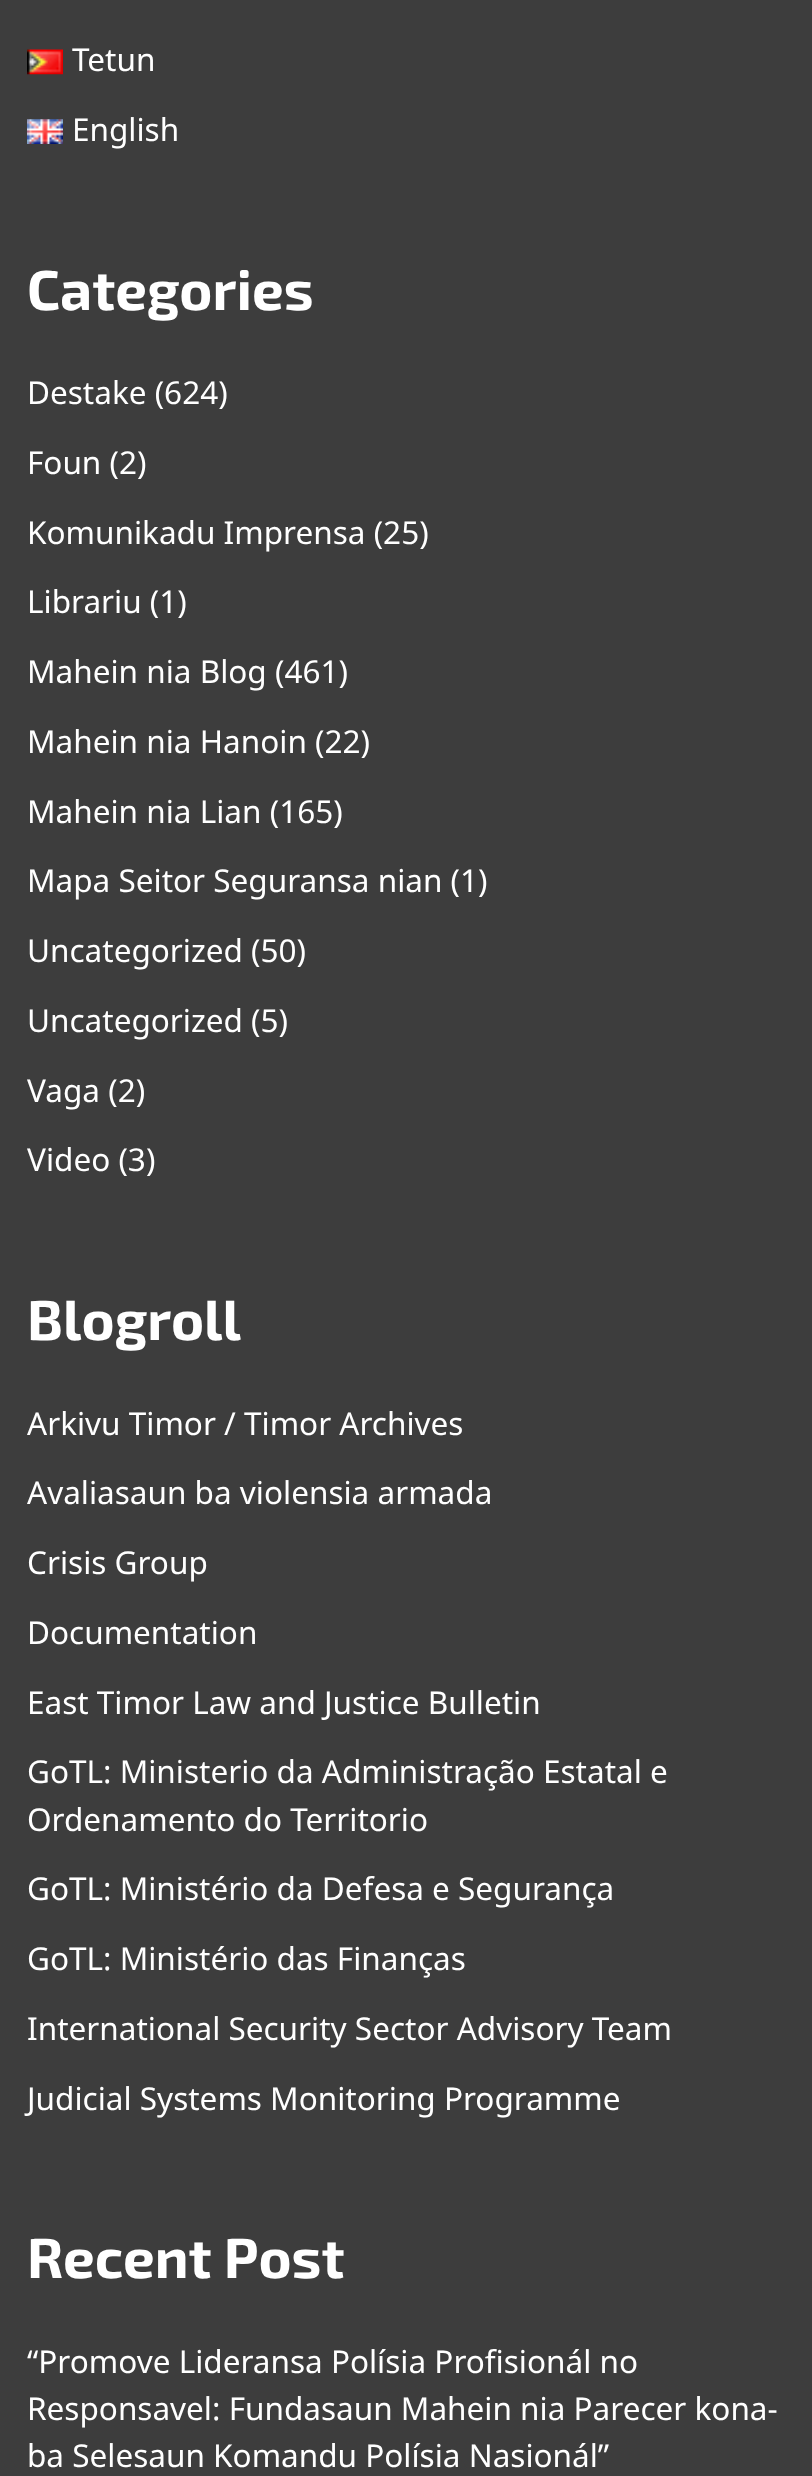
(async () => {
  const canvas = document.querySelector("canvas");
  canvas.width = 812;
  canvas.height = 2476;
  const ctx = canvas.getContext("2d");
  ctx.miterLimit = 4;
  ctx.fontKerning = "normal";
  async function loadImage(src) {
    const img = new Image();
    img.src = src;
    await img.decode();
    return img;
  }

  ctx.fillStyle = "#3d3d3d";
  ctx.fillRect(0, 0, 812, 2476);
  ctx.drawImage(await loadImage("img/1.png"), 27, 49, 36, 26);
  ctx.drawImage(await loadImage("img/2.png"), 27, 119, 36, 25);
  ctx.font = "31.5px Noto Sans";
  ctx.fillStyle = "#ffffff";
  ctx.fillText("Tetun", 72, 71);
  ctx.fillText("English", 72, 141);
  ctx.font = "bold 56.25px 'Exo 2'";
  ctx.fillText("Categories", 27, 310);
  ctx.font = "31.5px Noto Sans";
  for (const [text, x, y] of [
    ["Destake (624)", 27, 404],
    ["Foun (2)", 27, 474],
    ["Komunikadu Imprensa (25)", 27, 544],
    ["Librariu (1)", 27, 613],
    ["Mahein nia Blog (461)", 27, 683],
    ["Mahein nia Hanoin (22)", 27, 753],
    ["Mahein nia Lian (165)", 27, 823],
    ["Mapa Seitor Seguransa nian (1)", 27, 892],
    ["Uncategorized (50)", 27, 962],
    ["Uncategorized (5)", 27, 1032],
    ["Vaga (2)", 27, 1102],
    ["Video (3)", 27, 1171],
  ]) {
    ctx.fillText(text, x, y);
  }
  ctx.font = "bold 56.25px 'Exo 2'";
  ctx.fillText("Blogroll", 27, 1340);
  ctx.font = "31.5px Noto Sans";
  for (const [text, x, y] of [
    ["Arkivu Timor / Timor Archives", 27, 1435],
    ["Avaliasaun ba violensia armada", 27, 1504],
    ["Crisis Group", 27, 1574],
    ["Documentation", 27, 1644],
    ["East Timor Law and Justice Bulletin", 27, 1714],
    ["GoTL: Ministerio da Administração Estatal e", 27, 1783],
    ["Ordenamento do Territorio", 27, 1831],
    ["GoTL: Ministério da Defesa e Segurança", 27, 1900],
    ["GoTL: Ministério das Finanças", 27, 1970],
    ["International Security Sector Advisory Team", 27, 2040],
    ["Judicial Systems Monitoring Programme", 27, 2110],
  ]) {
    ctx.fillText(text, x, y);
  }
  ctx.font = "bold 56.25px 'Exo 2'";
  ctx.fillText("Recent Post", 27, 2278);
  ctx.font = "31.5px Noto Sans";
  for (const [text, x, y] of [
    ["“Promove Lideransa Polísia Profisionál no", 27, 2373],
    ["Responsavel: Fundasaun Mahein nia Parecer kona-", 27, 2420],
    ["ba Selesaun Komandu Polísia Nasionál”", 27, 2467],
  ]) {
    ctx.fillText(text, x, y);
  }
})();
